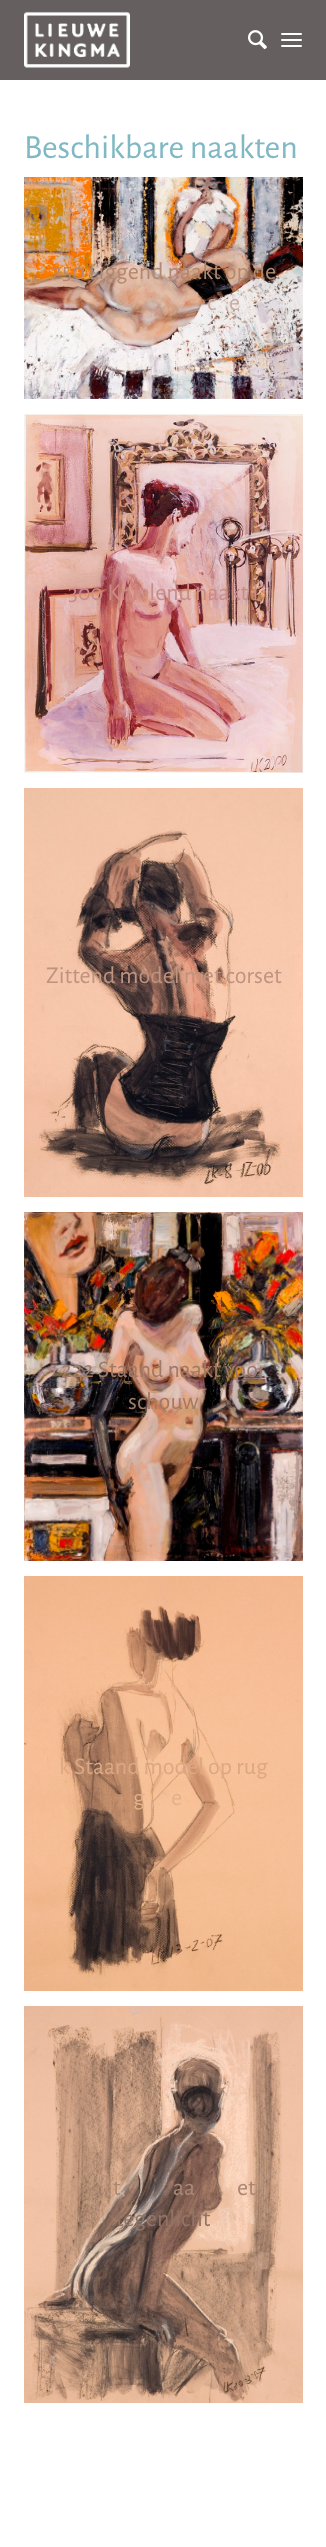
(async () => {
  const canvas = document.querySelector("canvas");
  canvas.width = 326;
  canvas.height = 2547;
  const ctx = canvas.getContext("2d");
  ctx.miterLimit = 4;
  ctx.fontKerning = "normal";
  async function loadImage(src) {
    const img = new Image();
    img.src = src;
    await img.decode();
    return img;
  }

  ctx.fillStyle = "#ffffff";
  ctx.fillRect(0, 0, 326, 2547);
  ctx.fillStyle = "#65605f";
  ctx.fillRect(0, 0, 326, 80);
  ctx.drawImage(await loadImage("img/1.png"), 24, 11, 106, 57);
  ctx.drawImage(await loadImage("img/2.png"), 248, 30, 19, 20);
  ctx.fillStyle = "#ffffff";
  ctx.beginPath();
  ctx.roundRect(281, 39, 21, 2, 1);
  ctx.fill();
  ctx.beginPath();
  ctx.roundRect(281, 33, 21, 2, 1);
  ctx.fill();
  ctx.beginPath();
  ctx.roundRect(281, 45, 21, 2, 1);
  ctx.fill();
  ctx.drawImage(await loadImage("img/3.png"), 24, 177, 279, 222);
  ctx.drawImage(await loadImage("img/4.png"), 24, 414, 279, 359);
  ctx.drawImage(await loadImage("img/5.png"), 24, 788, 279, 409);
  ctx.drawImage(await loadImage("img/6.png"), 24, 1212, 279, 349);
  ctx.drawImage(await loadImage("img/7.png"), 24, 1576, 279, 415);
  ctx.drawImage(await loadImage("img/8.png"), 24, 2006, 279, 397);
  ctx.font = "34px Alegreya Sans";
  ctx.fillStyle = "#80b8c4";
  ctx.fillText("Beschikbare naakten", 24, 158);
  ctx.font = "24px Alegreya Sans";
  ctx.fillStyle = "#b28970";
  ctx.fillText("250 Liggend naakt op de", 51, 279);
  ctx.fillStyle = "#ccac9e";
  ctx.fillText("c", 207, 310);
  ctx.fillText("e", 229, 310);
  ctx.fillStyle = "#c98d88";
  ctx.fillText("300 Knielend naakt I", 68, 600);
  ctx.fillStyle = "#be937f";
  ctx.fillText("Zittend model met corset", 46, 983);
  ctx.fillStyle = "#745248";
  ctx.fillText("II", 157, 1015);
  ctx.fillStyle = "#a07a66";
  ctx.fillText("222 Staand naakt voor", 61, 1377);
  ctx.fillText("schouw", 128, 1409);
  ctx.fillStyle = "#dca782";
  ctx.fillText("k Staand model op rug", 59, 1774);
  ctx.fillStyle = "#e4b089";
  ctx.fillText("g", 133, 1805);
  ctx.fillText("e", 171, 1805);
  ctx.fillStyle = "#aa8774";
  for (const [text, x, y] of [
    ["t", 113, 2195],
    ["aa", 173, 2195],
    ["et", 237, 2195],
  ]) {
    ctx.fillText(text, x, y);
  }
  ctx.fillStyle = "#927466";
  ctx.fillText("tegenlicht", 116, 2226);
})();
